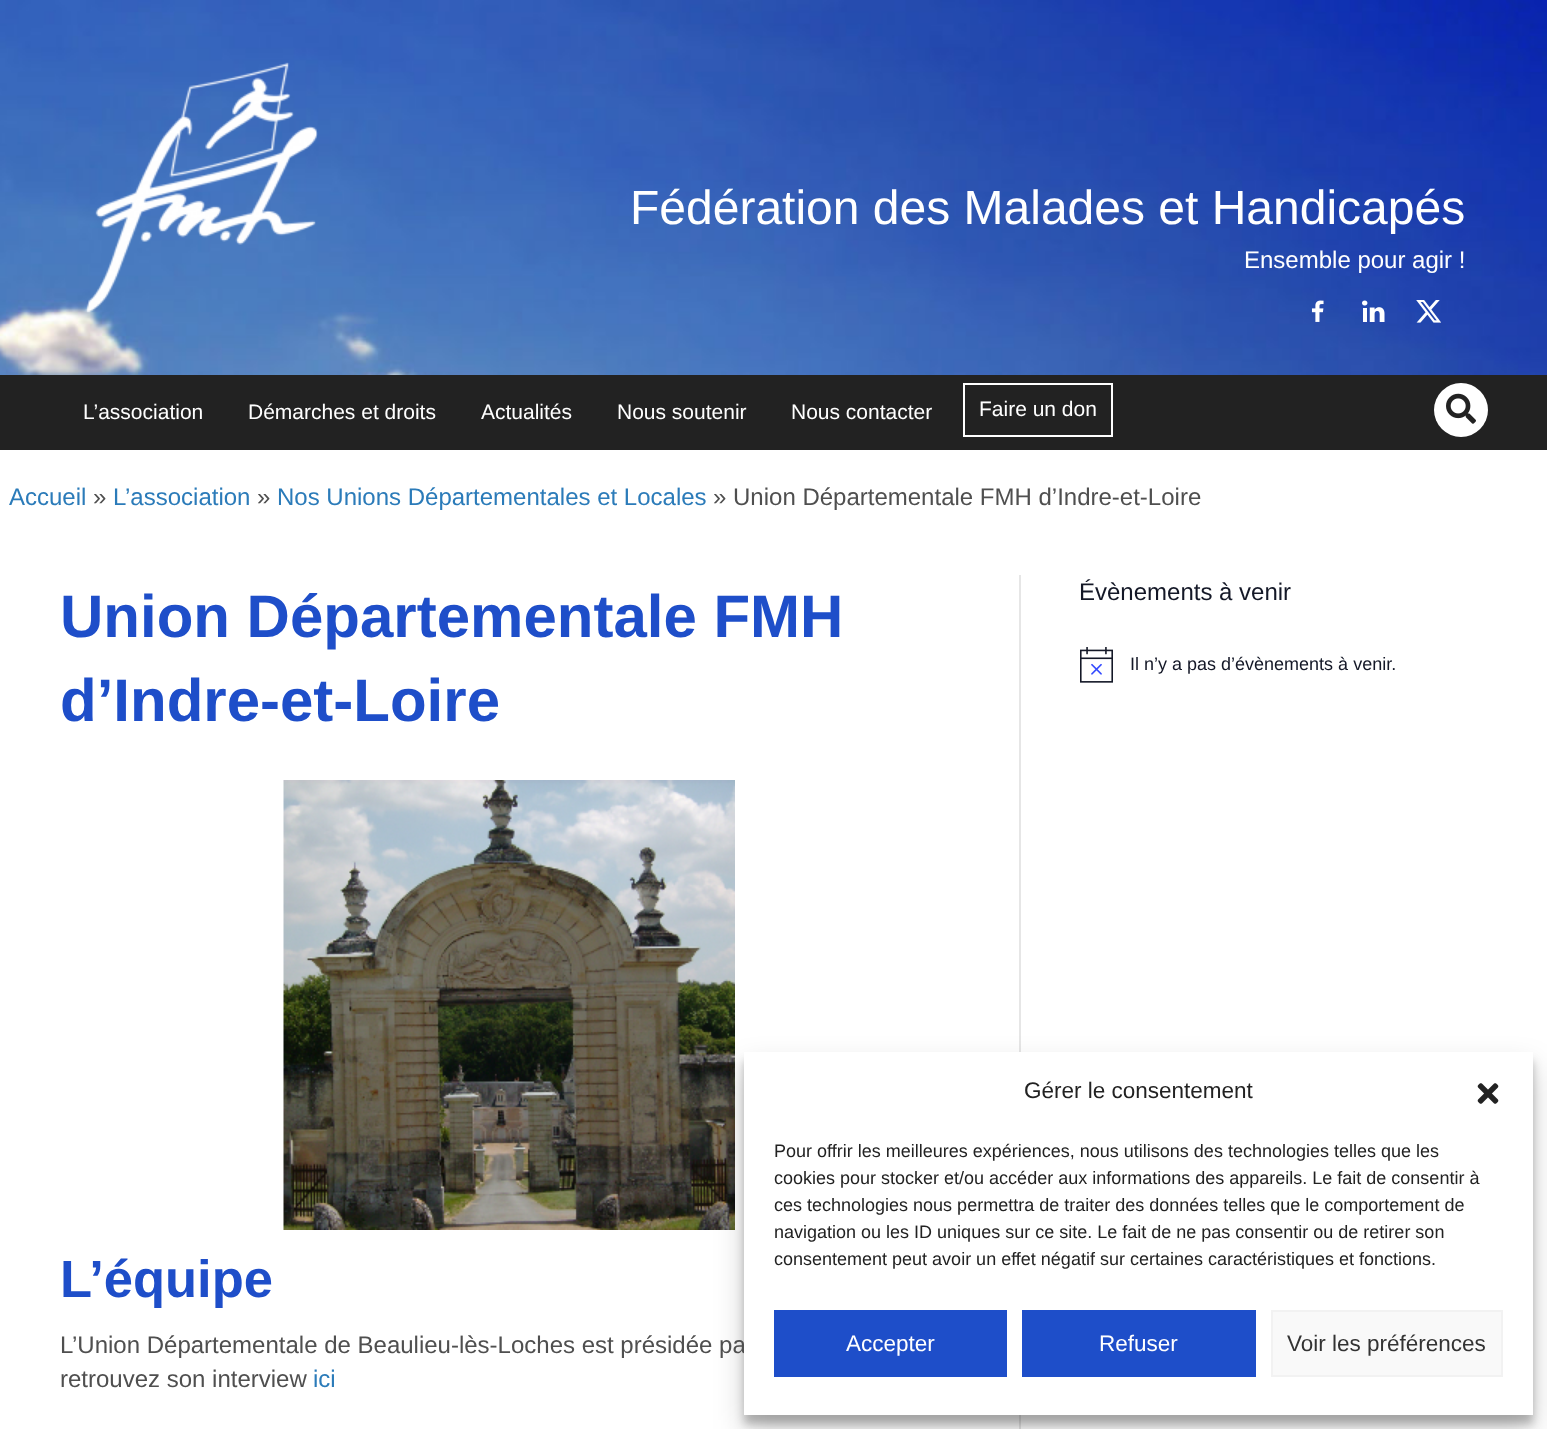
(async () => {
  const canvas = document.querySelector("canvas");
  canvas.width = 1547;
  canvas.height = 1429;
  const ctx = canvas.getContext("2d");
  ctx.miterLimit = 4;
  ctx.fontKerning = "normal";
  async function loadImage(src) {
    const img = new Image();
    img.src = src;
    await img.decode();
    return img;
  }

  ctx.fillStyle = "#ffffff";
  ctx.fillRect(0, 0, 1547, 1429);
  ctx.drawImage(await loadImage("img/1.png"), 0, 0, 1547, 375);
  ctx.drawImage(await loadImage("img/2.png"), 85, 62, 233, 251);
  ctx.drawImage(await loadImage("img/3.png"), 1311, 300, 13, 22);
  ctx.drawImage(await loadImage("img/4.png"), 1362, 300, 23, 22);
  ctx.drawImage(await loadImage("img/5.png"), 1416, 300, 25, 23);
  ctx.fillStyle = "#222222";
  ctx.fillRect(0, 375, 1547, 75);
  ctx.strokeStyle = "#ffffff";
  ctx.lineWidth = 2;
  ctx.strokeRect(964, 384, 148, 52);
  ctx.fillStyle = "#ffffff";
  ctx.beginPath();
  ctx.arc(1461, 410, 27, 0, Math.PI * 2);
  ctx.fill();
  ctx.drawImage(await loadImage("img/6.png"), 1446, 393, 30, 31);
  ctx.fillStyle = "#e6e6e6";
  ctx.fillRect(1019, 575, 2, 854);
  ctx.drawImage(await loadImage("img/7.png"), 283, 780, 452, 450);
  ctx.drawImage(await loadImage("img/8.png"), 1080, 647, 33, 36);
  ctx.fillStyle = "rgba(0, 0, 0, 0.23)";
  ctx.filter = "blur(4.5px)";
  ctx.beginPath();
  ctx.rect(744, 1061, 789, 363);
  ctx.fill();
  ctx.filter = "none";
  ctx.fillStyle = "rgba(0, 0, 0, 0.19)";
  ctx.filter = "blur(15px)";
  ctx.beginPath();
  ctx.rect(744, 1067, 789, 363);
  ctx.fill();
  ctx.filter = "none";
  ctx.font = "48px Liberation Sans";
  ctx.fillStyle = "#ffffff";
  ctx.fillText("Fédération des Malades et Handicapés", 630, 224);
  ctx.font = "24px Liberation Sans";
  ctx.fillText("Ensemble pour agir !", 1244, 268);
  ctx.font = "21px Liberation Sans";
  for (const [text, x, y] of [
    ["L’association", 83, 419],
    ["Démarches et droits", 248, 419],
    ["Actualités", 481, 419],
    ["Nous soutenir", 617, 419],
    ["Nous contacter", 791, 419],
    ["Faire un don", 979, 416],
  ]) {
    ctx.fillText(text, x, y);
  }
  ctx.font = "24px Liberation Sans";
  ctx.fillStyle = "#2b7bb9";
  ctx.fillText("Accueil", 9, 505);
  ctx.fillStyle = "#4f4f4f";
  ctx.fillText("»", 93, 505);
  ctx.fillStyle = "#2b7bb9";
  ctx.fillText("L’association", 113, 505);
  ctx.fillStyle = "#4f4f4f";
  ctx.fillText("»", 257, 505);
  ctx.fillStyle = "#2b7bb9";
  ctx.fillText("Nos Unions Départementales et Locales", 277, 505);
  ctx.fillStyle = "#4f4f4f";
  ctx.fillText("» Union Départementale FMH d’Indre-et-Loire", 713, 505);
  ctx.font = "bold 60px Liberation Sans";
  ctx.fillStyle = "#1e4ec9";
  ctx.fillText("Union Départementale FMH", 60, 637);
  ctx.fillText("d’Indre-et-Loire", 60, 721);
  ctx.font = "bold 52.5px Liberation Sans";
  ctx.fillText("L’équipe", 60, 1297);
  ctx.font = "24px Liberation Sans";
  ctx.fillStyle = "#4f4f4f";
  ctx.fillText("L’Union Départementale de Beaulieu-lès-Loches est présidée pa", 60, 1353);
  ctx.fillText("retrouvez son interview", 60, 1387);
  ctx.fillStyle = "#2b7bb9";
  ctx.fillText("ici", 313, 1387);
  ctx.fillStyle = "#141827";
  ctx.fillText("Évènements à venir", 1079, 600);
  ctx.font = "18px Liberation Sans";
  ctx.fillText("Il n’y a pas d’évènements à venir.", 1130, 670);
  ctx.fillStyle = "#ffffff";
  ctx.fillRect(744, 1052, 789, 363);
  ctx.font = "22.5px Liberation Sans";
  ctx.fillStyle = "#222222";
  ctx.fillText("Gérer le consentement", 1024, 1098);
  ctx.drawImage(await loadImage("img/9.png"), 1477, 1083, 22, 21);
  ctx.font = "18px Liberation Sans";
  for (const [text, x, y] of [
    ["Pour offrir les meilleures expériences, nous utilisons des technologies telles que les", 774, 1157],
    ["cookies pour stocker et/ou accéder aux informations des appareils. Le fait de consentir à", 774, 1184],
    ["ces technologies nous permettra de traiter des données telles que le comportement de", 774, 1211],
    ["navigation ou les ID uniques sur ce site. Le fait de ne pas consentir ou de retirer son", 774, 1238],
    ["consentement peut avoir un effet négatif sur certaines caractéristiques et fonctions.", 774, 1265],
  ]) {
    ctx.fillText(text, x, y);
  }
  ctx.fillStyle = "#1e4ec9";
  ctx.fillRect(774, 1310, 233, 67);
  ctx.font = "22.5px Liberation Sans";
  ctx.fillStyle = "#ffffff";
  ctx.fillText("Accepter", 846, 1351);
  ctx.fillStyle = "#1e4ec9";
  ctx.fillRect(1022, 1310, 234, 67);
  ctx.fillStyle = "#ffffff";
  ctx.fillText("Refuser", 1099, 1351);
  ctx.fillStyle = "#f9f9f9";
  ctx.beginPath();
  ctx.rect(1272, 1311, 230, 65);
  ctx.fill();
  ctx.strokeStyle = "#f2f2f2";
  ctx.stroke();
  ctx.fillStyle = "#333333";
  ctx.fillText("Voir les préférences", 1287, 1351);
})();
